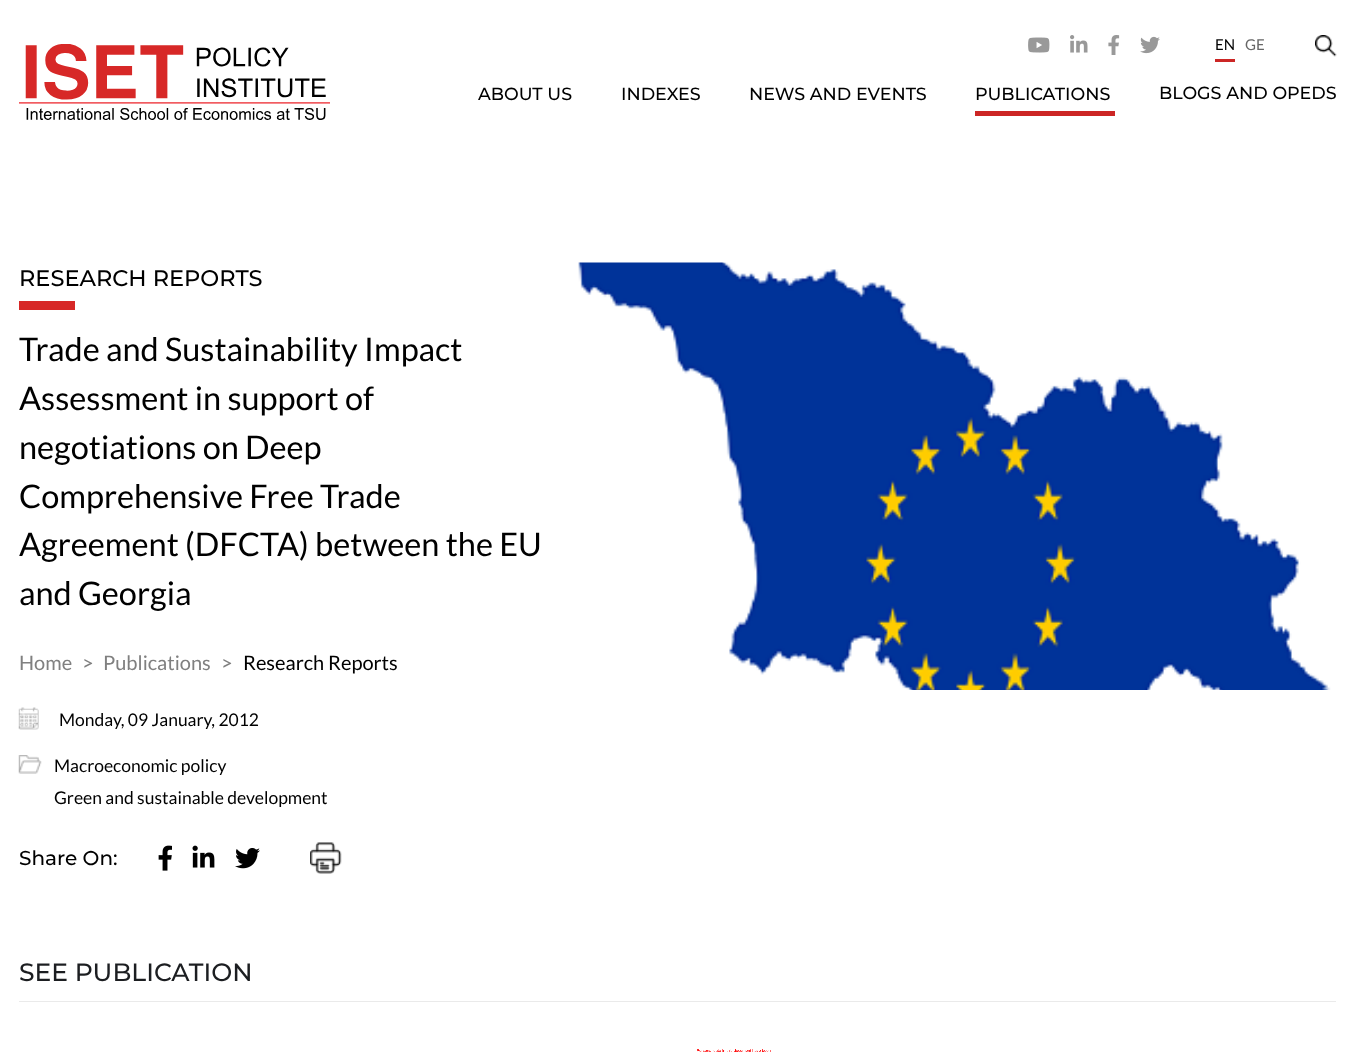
(async () => {
  const canvas = document.querySelector("canvas");
  canvas.width = 1354;
  canvas.height = 1052;
  const ctx = canvas.getContext("2d");
  ctx.miterLimit = 4;
  ctx.fontKerning = "normal";
  async function loadImage(src) {
    const img = new Image();
    img.src = src;
    await img.decode();
    return img;
  }

  ctx.fillStyle = "#ffffff";
  ctx.fillRect(0, 0, 1354, 1052);
  ctx.drawImage(await loadImage("img/1.png"), 19, 44, 311, 76);
  ctx.drawImage(await loadImage("img/2.png"), 1028, 37, 22, 16);
  ctx.drawImage(await loadImage("img/3.png"), 1070, 35, 18, 18);
  ctx.drawImage(await loadImage("img/4.png"), 1108, 35, 12, 20);
  ctx.drawImage(await loadImage("img/5.png"), 1140, 36, 20, 18);
  ctx.fillStyle = "#cc2625";
  ctx.fillRect(1215, 59, 20, 3);
  ctx.drawImage(await loadImage("img/6.png"), 1315, 35, 22, 22);
  ctx.fillRect(975, 111, 140, 5);
  ctx.fillStyle = "#d72827";
  ctx.fillRect(19, 301, 56, 9);
  ctx.drawImage(await loadImage("img/7.png"), 18, 707, 21, 23);
  ctx.drawImage(await loadImage("img/8.png"), 18, 755, 24, 19);
  ctx.drawImage(await loadImage("img/9.png"), 158, 845, 14, 26);
  ctx.drawImage(await loadImage("img/10.png"), 192, 845, 23, 23);
  ctx.drawImage(await loadImage("img/11.png"), 235, 848, 25, 21);
  ctx.drawImage(await loadImage("img/12.png"), 310, 842, 32, 32);
  ctx.drawImage(await loadImage("img/13.png"), 578, 262, 753, 428);
  ctx.fillStyle = "#eaeaea";
  ctx.fillRect(19, 1001, 1317, 1);
  ctx.drawImage(await loadImage("img/14.png"), 697, 1049, 74, 3);
  ctx.font = "15px Lato";
  ctx.fillStyle = "#000000";
  ctx.fillText("EN", 1215, 50);
  ctx.fillStyle = "#666666";
  ctx.fillText("GE", 1245, 50);
  ctx.font = "100 17.5px Montserrat";
  ctx.fillStyle = "#000000";
  for (const [text, x, y] of [
    ["ABOUT US", 478, 100],
    ["INDEXES", 621, 100],
    ["NEWS AND EVENTS", 749, 100],
    ["PUBLICATIONS", 975, 100],
    ["BLOGS AND OPEDS", 1159, 99],
  ]) {
    ctx.fillText(text, x, y);
  }
  ctx.font = "100 22.5px Montserrat";
  ctx.fillText("RESEARCH REPORTS", 19, 286);
  ctx.font = "32.5px Lato";
  for (const [text, x, y] of [
    ["Trade and Sustainability Impact", 19, 361],
    ["Assessment in support of", 19, 410],
    ["negotiations on Deep", 19, 459],
    ["Comprehensive Free Trade", 19, 508],
    ["Agreement (DFCTA) between the EU", 19, 556],
    ["and Georgia", 19, 605],
  ]) {
    ctx.fillText(text, x, y);
  }
  ctx.font = "20px Lato";
  ctx.fillStyle = "#808080";
  for (const [text, x, y] of [
    ["Home", 19, 670],
    [">", 82, 670],
    ["Publications", 103, 670],
    [">", 221, 670],
  ]) {
    ctx.fillText(text, x, y);
  }
  ctx.fillStyle = "#000000";
  ctx.fillText("Research Reports", 243, 670);
  ctx.font = "17.5px Lato";
  for (const [text, x, y] of [
    ["Monday, 09 January, 2012", 59, 726],
    ["Macroeconomic policy", 54, 772],
    ["Green and sustainable development", 54, 804],
  ]) {
    ctx.fillText(text, x, y);
  }
  ctx.font = "100 20px Montserrat";
  ctx.fillText("Share On:", 19, 865);
  ctx.font = "100 25px Montserrat";
  ctx.fillStyle = "#1c1e21";
  ctx.fillText("SEE PUBLICATION", 19, 981);
})();
